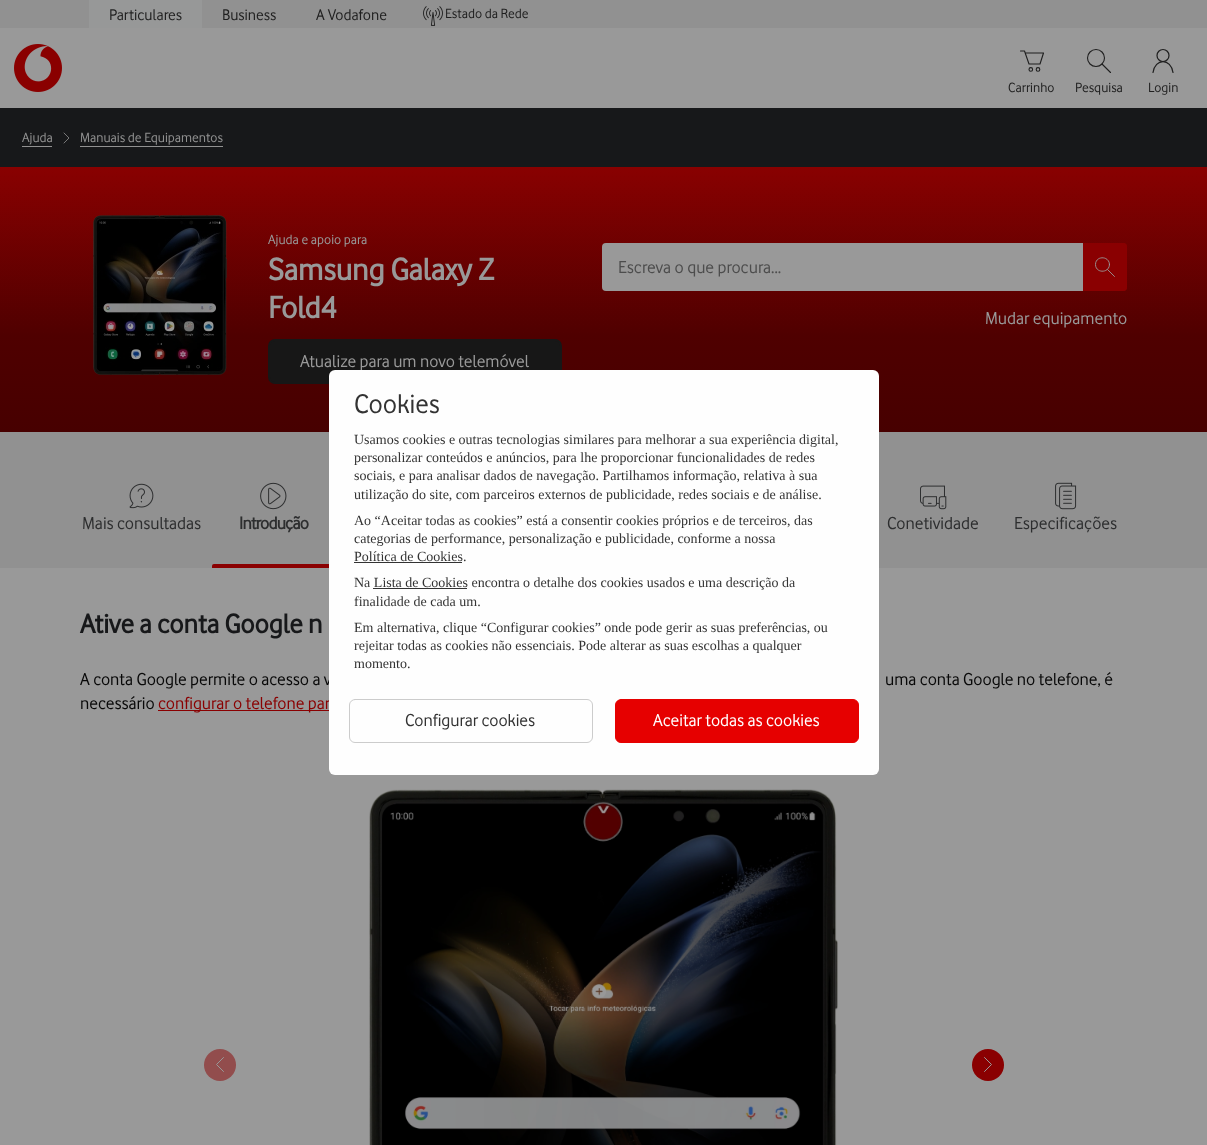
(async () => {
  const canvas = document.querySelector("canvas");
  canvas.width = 1207;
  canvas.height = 1145;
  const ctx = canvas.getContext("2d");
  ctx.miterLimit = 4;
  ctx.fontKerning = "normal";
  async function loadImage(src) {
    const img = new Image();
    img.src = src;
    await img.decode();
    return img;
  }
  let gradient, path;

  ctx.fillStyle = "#999999";
  ctx.fillRect(0, 0, 1207, 1145);
  ctx.fillStyle = "#919191";
  ctx.fillRect(0, 0, 1207, 28);
  ctx.fillStyle = "#979898";
  ctx.fillRect(89, 0, 113, 28);
  ctx.drawImage(await loadImage("img/1.png"), 423, 6, 20, 20);
  ctx.drawImage(await loadImage("img/2.png"), 14, 44, 48, 48);
  ctx.beginPath();
  ctx.arc(1030.8, 69.4, 1.8, 0, Math.PI * 2);
  ctx.strokeStyle = "#1f1f1f";
  ctx.lineWidth = 1.1;
  ctx.stroke();
  ctx.beginPath();
  ctx.arc(1038, 69.4, 1.8, 0, Math.PI * 2);
  ctx.stroke();
  path = new Path2D("M1020.5 51H1024.5L1029 64H1040L1043.5 53H1025.5");
  ctx.lineCap = "round";
  ctx.lineJoin = "round";
  ctx.stroke(path);
  ctx.beginPath();
  ctx.arc(1096, 58, 8.5, 0, Math.PI * 2);
  ctx.stroke();
  path = new Path2D("M1102 64L1110.5 72.5");
  ctx.stroke(path);
  ctx.beginPath();
  ctx.arc(1163, 55.5, 6, 0, Math.PI * 2);
  ctx.lineWidth = 1.2;
  ctx.stroke();
  path = new Path2D("M1173 72.5C1171 58 1155 58 1153 72.5");
  ctx.stroke(path);
  ctx.fillStyle = "#17181a";
  ctx.fillRect(0, 108, 1207, 59);
  ctx.fillStyle = "#919191";
  ctx.fillRect(22, 146, 30, 1);
  path = new Path2D("M64 133L69 138L64 143");
  ctx.strokeStyle = "#919191";
  ctx.lineWidth = 0.8;
  ctx.stroke(path);
  ctx.fillRect(80, 146, 143, 1);
  gradient = ctx.createLinearGradient(604, 432, 604, 167);
  gradient.addColorStop(0, "#470000");
  gradient.addColorStop(0.36, "#4f0000");
  gradient.addColorStop(1, "#890101");
  ctx.fillStyle = gradient;
  ctx.fillRect(0, 167, 1207, 265);
  ctx.drawImage(await loadImage("img/3.png"), 93, 215, 134, 160);
  ctx.fillStyle = "#171717";
  ctx.beginPath();
  ctx.roundRect(269, 340, 292, 43, 6);
  ctx.fill();
  ctx.strokeStyle = "#171717";
  ctx.lineWidth = 2;
  ctx.lineJoin = "miter";
  ctx.stroke();
  ctx.fillStyle = "#999999";
  ctx.beginPath();
  ctx.roundRect(602, 243, 481, 48, [4, 0, 0, 4]);
  ctx.fill();
  ctx.fillStyle = "#8a0001";
  ctx.beginPath();
  ctx.roundRect(1083, 243, 44, 48, [0, 4, 4, 0]);
  ctx.fill();
  ctx.beginPath();
  ctx.roundRect(1083, 243, 44, 48, [2, 4, 4, 2]);
  ctx.fill();
  path = new Path2D("M1107.5 269.5L1114.5 276.5M1109.5 264.5C1109.5 273.5 1095.5 273.5 1095.5 264.5C1095.5 255.5 1109.5 255.5 1109.5 264.5Z");
  ctx.strokeStyle = "#999999";
  ctx.lineWidth = 0.9;
  ctx.lineJoin = "round";
  ctx.stroke(path);
  ctx.fillStyle = "#919191";
  ctx.fillRect(0, 432, 1207, 136);
  ctx.drawImage(await loadImage("img/4.png"), 129, 483, 25, 26);
  ctx.drawImage(await loadImage("img/5.png"), 260, 482, 27, 28);
  ctx.fillStyle = "#8a0001";
  ctx.beginPath();
  ctx.roundRect(212, 564, 124, 4, [2, 2, 0, 0]);
  ctx.fill();
  ctx.drawImage(await loadImage("img/6.png"), 920, 485, 27, 25);
  ctx.drawImage(await loadImage("img/7.png"), 1055, 482, 22, 28);
  ctx.fillRect(158, 710, 171, 1);
  ctx.fillStyle = "#924d4d";
  ctx.beginPath();
  ctx.arc(220, 1065, 16, 0, Math.PI * 2);
  ctx.fill();
  path = new Path2D("M223.5 1071.5L216.5 1064.5L223.5 1057.5");
  ctx.lineWidth = 1;
  ctx.lineJoin = "miter";
  ctx.stroke(path);
  ctx.drawImage(await loadImage("img/8.png"), 369, 789, 469, 356);
  ctx.drawImage(await loadImage("img/10.png"), 382, 803, 442, 342);
  ctx.drawImage(await loadImage("img/9.png"), 583, 801, 40, 41);
  ctx.fillStyle = "#8a0001";
  ctx.beginPath();
  ctx.arc(988, 1065, 16, 0, Math.PI * 2);
  ctx.fill();
  path = new Path2D("M984.5 1057.5L991.5 1064.5L984.5 1071.5");
  ctx.stroke(path);
  ctx.font = "16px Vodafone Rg";
  ctx.fillStyle = "#1f1f1f";
  for (const [text, x, y] of [
    ["Particulares", 109, 20],
    ["Business", 222, 20],
    ["A Vodafone", 316, 20],
  ]) {
    ctx.fillText(text, x, y);
  }
  ctx.font = "14px Vodafone Rg";
  for (const [text, x, y] of [
    ["Estado da Rede", 445, 18],
    ["Carrinho", 1008, 92],
    ["Pesquisa", 1075, 92],
    ["Login", 1148, 92],
  ]) {
    ctx.fillText(text, x, y);
  }
  ctx.fillStyle = "#919191";
  ctx.fillText("Ajuda", 22, 142);
  ctx.fillText("Manuais de Equipamentos", 80, 142);
  ctx.fillStyle = "#999999";
  ctx.fillText("Ajuda e apoio para", 268, 244);
  ctx.font = "bold 32px Vodafone Rg";
  ctx.fillText("Samsung Galaxy Z", 268, 280);
  ctx.fillText("Fold4", 268, 318);
  ctx.font = "18px Vodafone Rg";
  ctx.fillText("Atualize para um novo telemóvel", 300, 367);
  ctx.fillStyle = "#4d4d4d";
  ctx.fillText("Escreva o que procura...", 618, 273);
  ctx.fillStyle = "#999999";
  ctx.fillText("Mudar equipamento", 985, 324);
  ctx.fillStyle = "#2d2e2f";
  ctx.fillText("Mais consultadas", 82, 529);
  ctx.letterSpacing = "-0.75px";
  ctx.font = "bold 18px Vodafone Rg";
  ctx.fillText("Introdução", 239, 529);
  ctx.letterSpacing = "0px";
  ctx.font = "18px Vodafone Rg";
  ctx.fillText("Conetividade", 887, 529);
  ctx.fillText("Especificações", 1014, 529);
  ctx.font = "bold 28px Vodafone Rg";
  ctx.fillStyle = "#17181a";
  ctx.fillText("Ative a conta Google n", 80, 633);
  ctx.font = "18px Vodafone Rg";
  ctx.fillStyle = "#080808";
  for (const [text, x, y] of [
    ["A conta Google permite o acesso a v", 80, 685],
    ["uma conta Google no telefone, é", 885, 685],
    ["necessário", 80, 709],
  ]) {
    ctx.fillText(text, x, y);
  }
  ctx.fillStyle = "#8a0001";
  ctx.fillText("configurar o telefone par", 158, 709);
  ctx.fillStyle = "#fefefe";
  ctx.beginPath();
  ctx.roundRect(329, 370, 550, 405, 6);
  ctx.fill();
  ctx.font = "28px Vodafone Rg";
  ctx.fillStyle = "#333333";
  ctx.fillText("Cookies", 354, 413);
  ctx.font = "14px Liberation Serif";
  for (const [text, x, y] of [
    ["Usamos cookies e outras tecnologias similares para melhorar a sua experiência digital,", 354, 444],
    ["personalizar conteúdos e anúncios, para lhe proporcionar funcionalidades de redes", 354, 462],
    ["sociais, e para analisar dados de navegação. Partilhamos informação, relativa à sua", 354, 480],
    ["utilização do site, com parceiros externos de publicidade, redes sociais e de análise.", 354, 499],
    ["Ao “Aceitar todas as cookies” está a consentir cookies próprios e de terceiros, das", 354, 525],
    ["categorias de performance, personalização e publicidade, conforme a nossa", 354, 543],
    ["Política de Cookies.", 354, 561],
  ]) {
    ctx.fillText(text, x, y);
  }
  ctx.fillRect(354, 562, 108, 1);
  ctx.fillText("Na Lista de Cookies encontra o detalhe dos cookies usados e uma descrição da", 354, 587);
  ctx.fillRect(373, 588, 94, 1);
  for (const [text, x, y] of [
    ["finalidade de cada um.", 354, 606],
    ["Em alternativa, clique “Configurar cookies” onde pode gerir as suas preferências, ou", 354, 632],
    ["rejeitar todas as cookies não essenciais. Pode alterar as suas escolhas a qualquer", 354, 650],
    ["momento.", 354, 668],
  ]) {
    ctx.fillText(text, x, y);
  }
  ctx.beginPath();
  ctx.roundRect(349.5, 699.5, 243, 43, 5.5);
  ctx.strokeStyle = "#cccccc";
  ctx.stroke();
  ctx.font = "18px Vodafone Rg";
  ctx.fillText("Configurar cookies", 405, 726);
  ctx.fillStyle = "#e60000";
  ctx.beginPath();
  ctx.roundRect(615.5, 699.5, 243, 43, 5.5);
  ctx.fill();
  ctx.strokeStyle = "#e60000";
  ctx.stroke();
  ctx.fillStyle = "#ffffff";
  ctx.fillText("Aceitar todas as cookies", 653, 726);
})();
